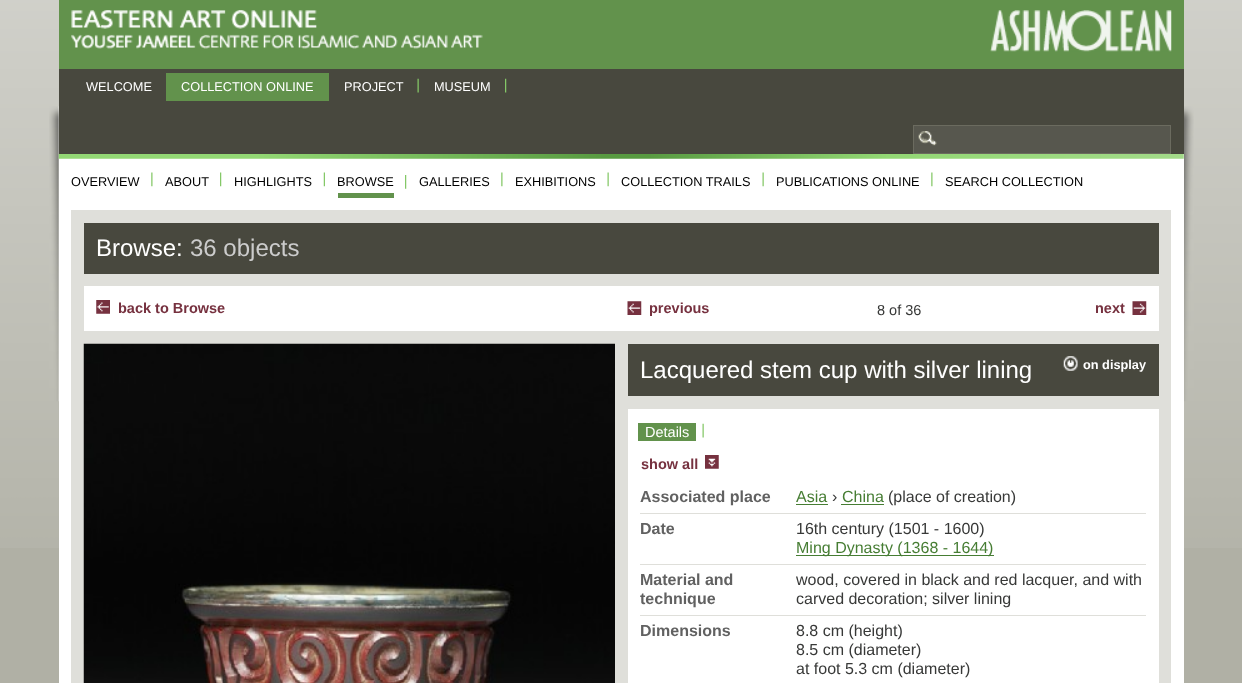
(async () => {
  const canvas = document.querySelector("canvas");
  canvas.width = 1242;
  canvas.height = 683;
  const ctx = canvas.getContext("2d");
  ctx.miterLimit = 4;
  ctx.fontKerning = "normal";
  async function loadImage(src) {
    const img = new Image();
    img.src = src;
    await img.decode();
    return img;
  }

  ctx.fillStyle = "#b0b0a5";
  ctx.fillRect(0, 0, 1242, 683);
  ctx.drawImage(await loadImage("img/1.png"), 0, 0, 1242, 548);
  ctx.drawImage(await loadImage("img/2.png"), 49, 106, 1145, 296);
  ctx.fillStyle = "#62924c";
  ctx.fillRect(59, 0, 1125, 69);
  ctx.drawImage(await loadImage("img/3.png"), 71, 10, 412, 39);
  ctx.drawImage(await loadImage("img/4.png"), 990, 10, 182, 42);
  ctx.fillStyle = "#ffffff";
  ctx.fillRect(59, 154, 1125, 529);
  ctx.drawImage(await loadImage("img/8.png"), 58, 153, 1126, 6);
  ctx.fillStyle = "#48483e";
  ctx.fillRect(59, 69, 1125, 85);
  ctx.fillStyle = "#62924c";
  ctx.fillRect(166, 73, 163, 28);
  ctx.drawImage(await loadImage("img/5.png"), 417, 78, 2, 15);
  ctx.drawImage(await loadImage("img/6.png"), 505, 78, 2, 15);
  ctx.fillStyle = "#57574e";
  ctx.fillRect(914, 126, 256, 27);
  ctx.drawImage(await loadImage("img/7.png"), 918, 131, 19, 15);
  ctx.strokeStyle = "#6b6b5f";
  ctx.strokeRect(913.5, 125.5, 257, 28);
  ctx.drawImage(await loadImage("img/9.png"), 151, 172, 2, 15);
  ctx.drawImage(await loadImage("img/10.png"), 220, 172, 2, 15);
  ctx.drawImage(await loadImage("img/11.png"), 323, 172, 2, 15);
  ctx.drawImage(await loadImage("img/12.png"), 405, 175, 2, 14);
  ctx.fillStyle = "#62924c";
  ctx.fillRect(338, 193, 56, 5);
  ctx.drawImage(await loadImage("img/9.png"), 501, 172, 2, 15);
  ctx.drawImage(await loadImage("img/13.png"), 607, 172, 2, 15);
  ctx.drawImage(await loadImage("img/13.png"), 762, 172, 2, 15);
  ctx.drawImage(await loadImage("img/9.png"), 931, 172, 2, 15);
  for (const [x, y, w, h, color] of [
    [71, 210, 1100, 473, "#dfdfda"],
    [84, 223, 1075, 51, "#48483e"],
    [84, 286, 1075, 45, "#ffffff"],
  ]) {
    ctx.fillStyle = color;
    ctx.fillRect(x, y, w, h);
  }
  ctx.drawImage(await loadImage("img/14.png"), 96, 300, 14, 14);
  ctx.drawImage(await loadImage("img/15.png"), 627, 301, 15, 14);
  ctx.drawImage(await loadImage("img/16.png"), 1132, 301, 15, 14);
  ctx.drawImage(await loadImage("img/17.png"), 83, 343, 532, 340);
  ctx.fillRect(628, 409, 531, 274);
  ctx.fillStyle = "#48483e";
  ctx.fillRect(628, 344, 531, 52);
  ctx.drawImage(await loadImage("img/18.png"), 1063, 356, 15, 15);
  ctx.drawImage(await loadImage("img/19.png"), 702, 423, 2, 15);
  ctx.fillStyle = "#62924c";
  ctx.fillRect(638, 423, 58, 18);
  ctx.drawImage(await loadImage("img/20.png"), 705, 455, 14, 14);
  for (const [x, y, w, h, color] of [
    [640, 513, 506, 1, "#dfdfda"],
    [796, 504, 32, 1, "#467d33"],
    [841, 504, 43, 1, "#467d33"],
    [640, 564, 506, 1, "#dfdfda"],
    [796, 555, 198, 1, "#467d33"],
    [640, 615, 506, 1, "#dfdfda"],
  ]) {
    ctx.fillStyle = color;
    ctx.fillRect(x, y, w, h);
  }
  ctx.font = "12.75px Liberation Sans";
  ctx.fillStyle = "#ffffff";
  for (const [text, x, y] of [
    ["WELCOME", 86, 91],
    ["COLLECTION ONLINE", 181, 91],
    ["PROJECT", 344, 91],
    ["MUSEUM", 434, 91],
  ]) {
    ctx.fillText(text, x, y);
  }
  ctx.fillStyle = "#000000";
  for (const [text, x, y] of [
    ["OVERVIEW", 71, 186],
    ["ABOUT", 165, 186],
    ["HIGHLIGHTS", 234, 186],
    ["BROWSE", 337, 186],
    ["GALLERIES", 419, 186],
    ["EXHIBITIONS", 515, 186],
    ["COLLECTION TRAILS", 621, 186],
    ["PUBLICATIONS ONLINE", 776, 186],
    ["SEARCH COLLECTION", 945, 186],
  ]) {
    ctx.fillText(text, x, y);
  }
  ctx.font = "24px Liberation Sans";
  ctx.fillStyle = "#ffffff";
  ctx.fillText("Browse:", 96, 256);
  ctx.fillStyle = "#cccccc";
  ctx.fillText("36 objects", 190, 256);
  ctx.font = "bold 14.5px Liberation Sans";
  ctx.fillStyle = "#76313f";
  ctx.fillText("back to Browse", 118, 313);
  ctx.fillText("previous", 649, 313);
  ctx.font = "14.5px Liberation Sans";
  ctx.fillStyle = "#383938";
  ctx.fillText("8 of 36", 877, 315);
  ctx.font = "bold 14.5px Liberation Sans";
  ctx.fillStyle = "#76313f";
  ctx.fillText("next", 1095, 313);
  ctx.font = "24px Liberation Sans";
  ctx.fillStyle = "#ffffff";
  ctx.fillText("Lacquered stem cup with silver lining", 640, 378);
  ctx.font = "bold 12.75px Liberation Sans";
  ctx.fillText("on display", 1083, 369);
  ctx.font = "14.5px Liberation Sans";
  ctx.fillText("Details", 645, 437);
  ctx.font = "bold 14.5px Liberation Sans";
  ctx.fillStyle = "#76313f";
  ctx.fillText("show all", 641, 469);
  ctx.font = "bold 16px Liberation Sans";
  ctx.fillStyle = "#616161";
  ctx.fillText("Associated place", 640, 502);
  ctx.font = "16px Liberation Sans";
  ctx.fillStyle = "#467d33";
  ctx.fillText("Asia", 796, 502);
  ctx.fillStyle = "#383938";
  ctx.fillText("›", 832, 502);
  ctx.fillStyle = "#467d33";
  ctx.fillText("China", 842, 502);
  ctx.fillStyle = "#383938";
  ctx.fillText("(place of creation)", 888, 502);
  ctx.font = "bold 16px Liberation Sans";
  ctx.fillStyle = "#616161";
  ctx.fillText("Date", 640, 534);
  ctx.font = "16px Liberation Sans";
  ctx.fillStyle = "#383938";
  ctx.fillText("16th century (1501 - 1600)", 796, 534);
  ctx.fillStyle = "#467d33";
  ctx.fillText("Ming Dynasty (1368 - 1644)", 796, 553);
  ctx.font = "bold 16px Liberation Sans";
  ctx.fillStyle = "#616161";
  ctx.fillText("Material and", 640, 585);
  ctx.fillText("technique", 640, 604);
  ctx.font = "16px Liberation Sans";
  ctx.fillStyle = "#383938";
  ctx.fillText("wood, covered in black and red lacquer, and with", 796, 585);
  ctx.fillText("carved decoration; silver lining", 796, 604);
  ctx.font = "bold 16px Liberation Sans";
  ctx.fillStyle = "#616161";
  ctx.fillText("Dimensions", 640, 636);
  ctx.font = "16px Liberation Sans";
  ctx.fillStyle = "#383938";
  for (const [text, x, y] of [
    ["8.8 cm (height)", 796, 636],
    ["8.5 cm (diameter)", 796, 655],
    ["at foot 5.3 cm (diameter)", 796, 674],
  ]) {
    ctx.fillText(text, x, y);
  }
})();
